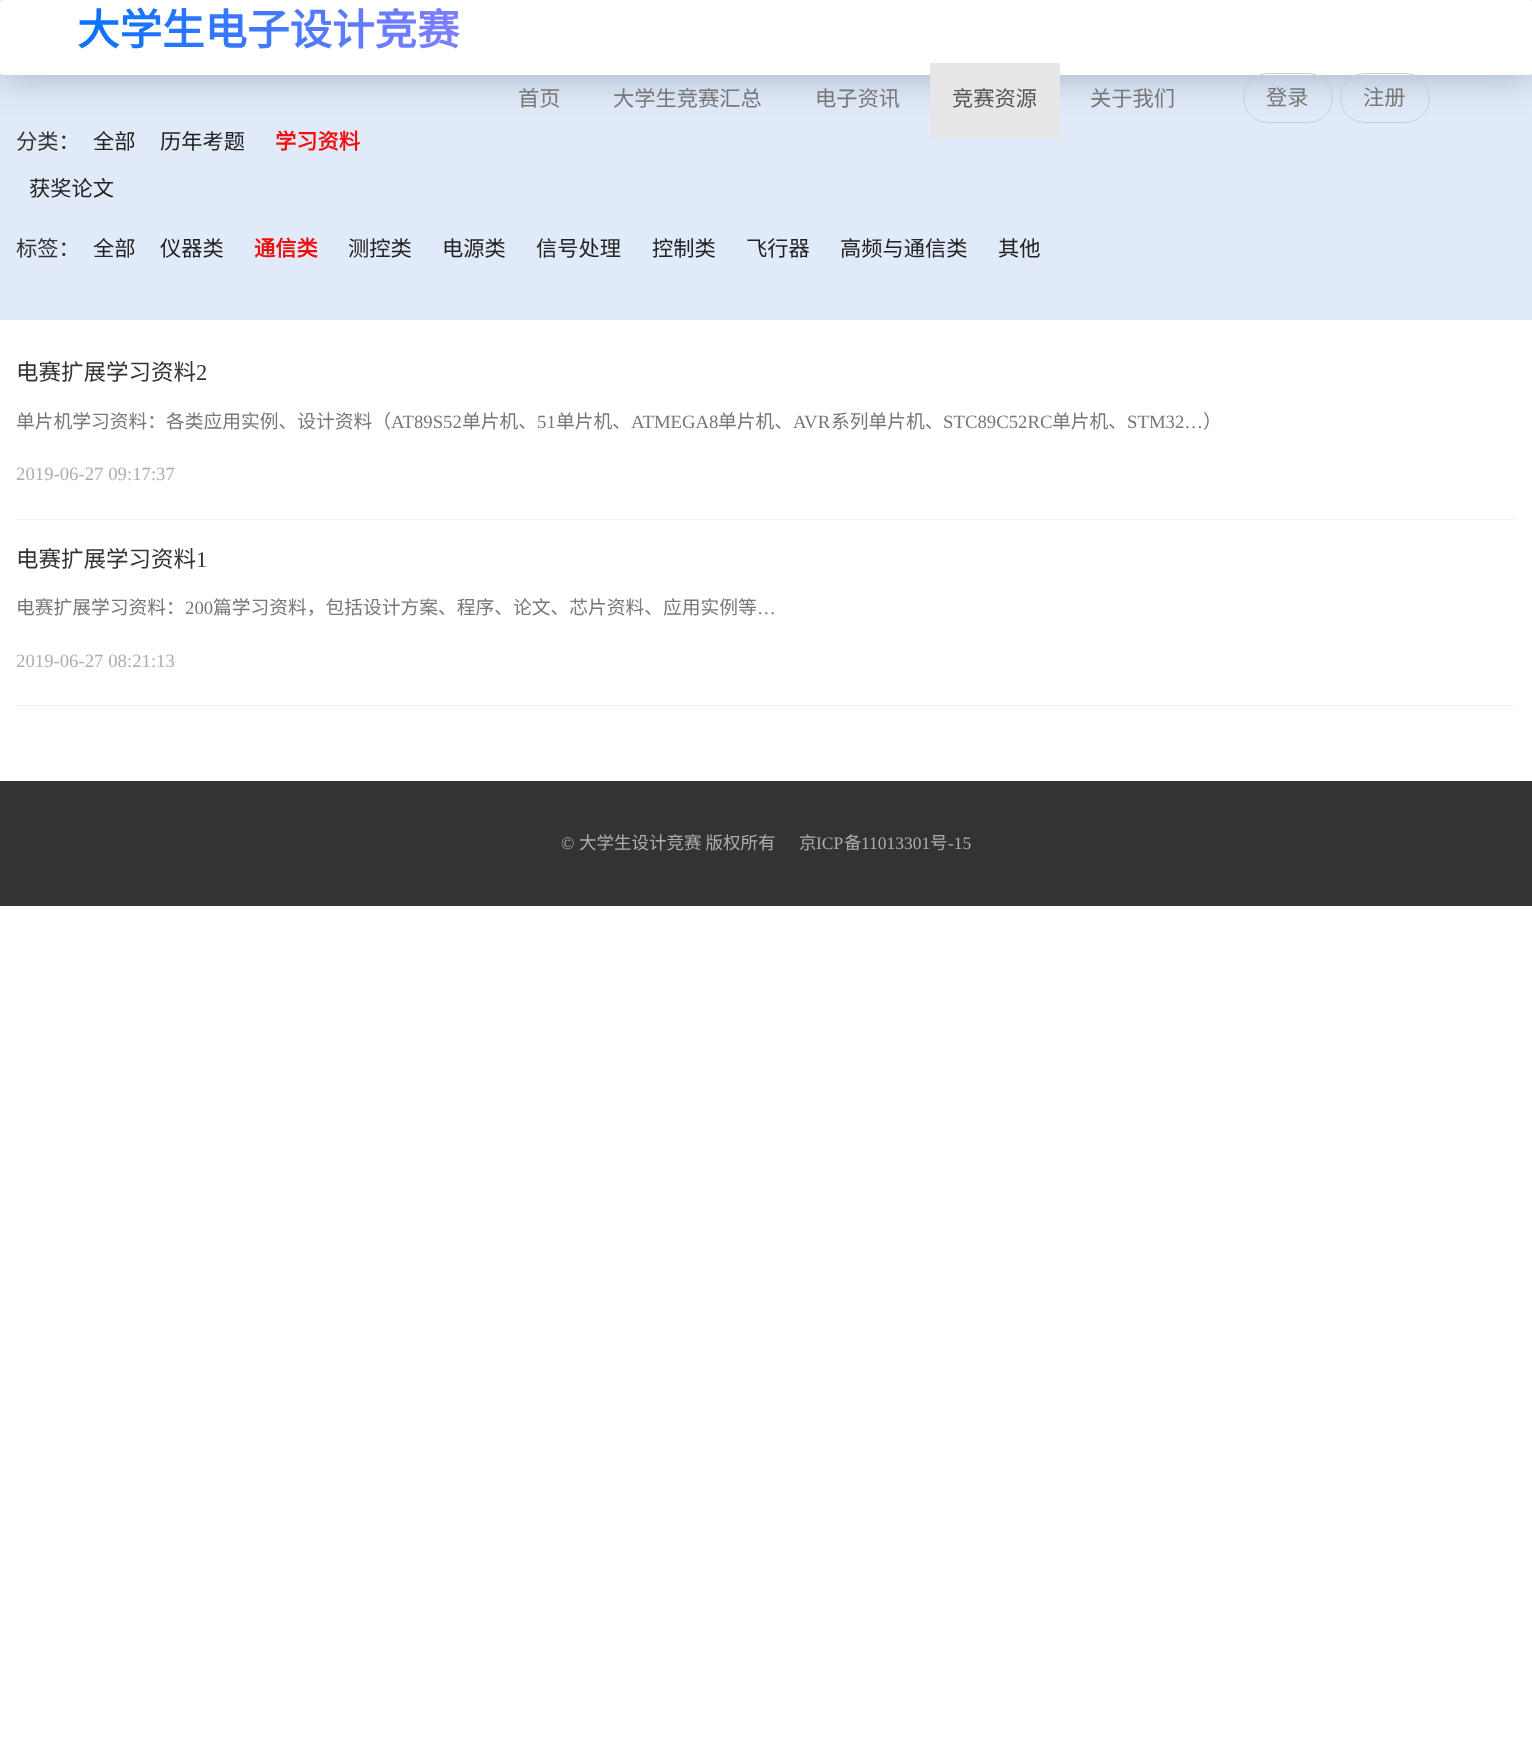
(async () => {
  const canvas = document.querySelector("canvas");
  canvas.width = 1532;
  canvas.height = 1740;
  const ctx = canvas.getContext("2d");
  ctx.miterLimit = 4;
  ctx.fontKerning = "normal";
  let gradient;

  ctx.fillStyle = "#ffffff";
  ctx.fillRect(0, 0, 1532, 1740);
  ctx.fillStyle = "#e1eaf8";
  ctx.fillRect(0, 75, 1532, 245);
  ctx.fillStyle = "rgba(3, 34, 71, 0.3)";
  ctx.filter = "blur(19px)";
  ctx.beginPath();
  ctx.roundRect(0, 0, 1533, 75, 5);
  ctx.fill();
  ctx.filter = "none";
  ctx.fillStyle = "#ffffff";
  ctx.beginPath();
  ctx.roundRect(0, 0, 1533, 75, 5);
  ctx.fill();
  ctx.fillStyle = "#e7e7e7";
  ctx.fillRect(930, 63, 130, 75);
  ctx.beginPath();
  ctx.roundRect(1243.5, 73.5, 89, 49, 24.5);
  ctx.strokeStyle = "#cccccc";
  ctx.stroke();
  ctx.beginPath();
  ctx.roundRect(1340.5, 73.5, 89, 49, 24.5);
  ctx.stroke();
  for (const [x, y, w, h, color] of [
    [16, 519, 1500, 1, "#f1f1f1"],
    [16, 705, 1500, 1, "#f1f1f1"],
    [0, 781, 1532, 125, "#333333"],
  ]) {
    ctx.fillStyle = color;
    ctx.fillRect(x, y, w, h);
  }
  ctx.font = "bold 42.5px Noto Sans CJK SC";
  gradient = ctx.createLinearGradient(58, 31, 478, 31);
  gradient.addColorStop(0, "#0072ff");
  gradient.addColorStop(1, "#857fff");
  ctx.fillStyle = gradient;
  ctx.fillText("大学生电子设计竞赛", 77, 45);
  ctx.font = "21.25px Noto Sans CJK SC";
  ctx.fillStyle = "#777777";
  for (const [text, x, y] of [
    ["首页", 518, 106],
    ["大学生竞赛汇总", 613, 106],
    ["电子资讯", 815, 106],
  ]) {
    ctx.fillText(text, x, y);
  }
  ctx.fillStyle = "#555555";
  ctx.fillText("竞赛资源", 952, 106);
  ctx.fillStyle = "#777777";
  for (const [text, x, y] of [
    ["关于我们", 1090, 106],
    ["登录", 1266, 105],
    ["注册", 1363, 105],
  ]) {
    ctx.fillText(text, x, y);
  }
  ctx.fillStyle = "#222222";
  ctx.fillText("历年考题", 160, 149);
  ctx.font = "bold 21.25px Noto Sans CJK SC";
  ctx.fillStyle = "#f20d0d";
  ctx.fillText("学习资料", 275, 149);
  ctx.font = "21.25px Noto Sans CJK SC";
  ctx.fillStyle = "#222222";
  ctx.fillText("获奖论文", 29, 196);
  ctx.fillStyle = "#333333";
  ctx.fillText("分类：", 16, 149);
  ctx.fillStyle = "#222222";
  ctx.fillText("全部", 93, 149);
  ctx.fillStyle = "#333333";
  ctx.fillText("标签：", 16, 256);
  ctx.fillStyle = "#222222";
  ctx.fillText("全部", 93, 256);
  ctx.fillText("仪器类", 160, 256);
  ctx.font = "bold 21.25px Noto Sans CJK SC";
  ctx.fillStyle = "#f20d0d";
  ctx.fillText("通信类", 254, 256);
  ctx.font = "21.25px Noto Sans CJK SC";
  ctx.fillStyle = "#222222";
  for (const [text, x, y] of [
    ["测控类", 348, 256],
    ["电源类", 442, 256],
    ["信号处理", 536, 256],
    ["控制类", 652, 256],
    ["飞行器", 746, 256],
    ["高频与通信类", 840, 256],
    ["其他", 998, 256],
  ]) {
    ctx.fillText(text, x, y);
  }
  ctx.font = "22.5px Noto Sans CJK SC";
  ctx.fillStyle = "#333333";
  ctx.fillText("电赛扩展学习资料", 16, 380);
  ctx.font = "22.5px Liberation Serif";
  ctx.fillText("2", 196, 380);
  ctx.font = "18.75px Noto Sans CJK SC";
  ctx.fillStyle = "#777777";
  ctx.fillText("单片机学习资料：各类应用实例、设计资料（", 16, 428);
  ctx.font = "18.75px Liberation Serif";
  ctx.fillText("AT89S52", 391, 428);
  ctx.font = "18.75px Noto Sans CJK SC";
  ctx.fillText("单片机、", 462, 428);
  ctx.font = "18.75px Liberation Serif";
  ctx.fillText("51", 537, 428);
  ctx.font = "18.75px Noto Sans CJK SC";
  ctx.fillText("单片机、", 556, 428);
  ctx.font = "18.75px Liberation Serif";
  ctx.fillText("ATMEGA8", 631, 428);
  ctx.font = "18.75px Noto Sans CJK SC";
  ctx.fillText("单片机、", 718, 428);
  ctx.font = "18.75px Liberation Serif";
  ctx.fillText("AVR", 793, 428);
  ctx.font = "18.75px Noto Sans CJK SC";
  ctx.fillText("系列单片机、", 831, 428);
  ctx.font = "18.75px Liberation Serif";
  ctx.fillText("STC89C52RC", 943, 428);
  ctx.font = "18.75px Noto Sans CJK SC";
  ctx.fillText("单片机、", 1052, 428);
  ctx.font = "18.75px Liberation Serif";
  ctx.fillText("STM32…", 1127, 428);
  ctx.font = "18.75px Noto Sans CJK SC";
  ctx.fillText("）", 1203, 428);
  ctx.font = "18.75px Liberation Serif";
  ctx.fillStyle = "#adadad";
  ctx.fillText("2019-06-27 09:17:37", 16, 480);
  ctx.font = "22.5px Noto Sans CJK SC";
  ctx.fillStyle = "#333333";
  ctx.fillText("电赛扩展学习资料", 16, 567);
  ctx.font = "22.5px Liberation Serif";
  ctx.fillText("1", 196, 567);
  ctx.font = "18.75px Noto Sans CJK SC";
  ctx.fillStyle = "#777777";
  ctx.fillText("电赛扩展学习资料：", 16, 614);
  ctx.font = "18.75px Liberation Serif";
  ctx.fillText("200", 185, 614);
  ctx.font = "18.75px Noto Sans CJK SC";
  ctx.fillText("篇学习资料，包括设计方案、程序、论文、芯片资料、应用实例等", 213, 614);
  ctx.font = "18.75px Liberation Serif";
  ctx.fillText("…", 757, 614);
  ctx.fillStyle = "#adadad";
  ctx.fillText("2019-06-27 08:21:13", 16, 667);
  ctx.font = "17.5px Liberation Serif";
  ctx.fillText("©", 561, 849);
  ctx.font = "17.5px Noto Sans CJK SC";
  ctx.fillText("大学生设计竞赛 版权所有", 579, 849);
  ctx.fillText("京", 799, 849);
  ctx.font = "17.5px Liberation Serif";
  ctx.fillText("ICP", 816, 849);
  ctx.font = "17.5px Noto Sans CJK SC";
  ctx.fillText("备", 844, 849);
  ctx.font = "17.5px Liberation Serif";
  ctx.fillText("11013301", 861, 849);
  ctx.font = "17.5px Noto Sans CJK SC";
  ctx.fillText("号", 930, 849);
  ctx.font = "17.5px Liberation Serif";
  ctx.fillText("-15", 948, 849);
})();
